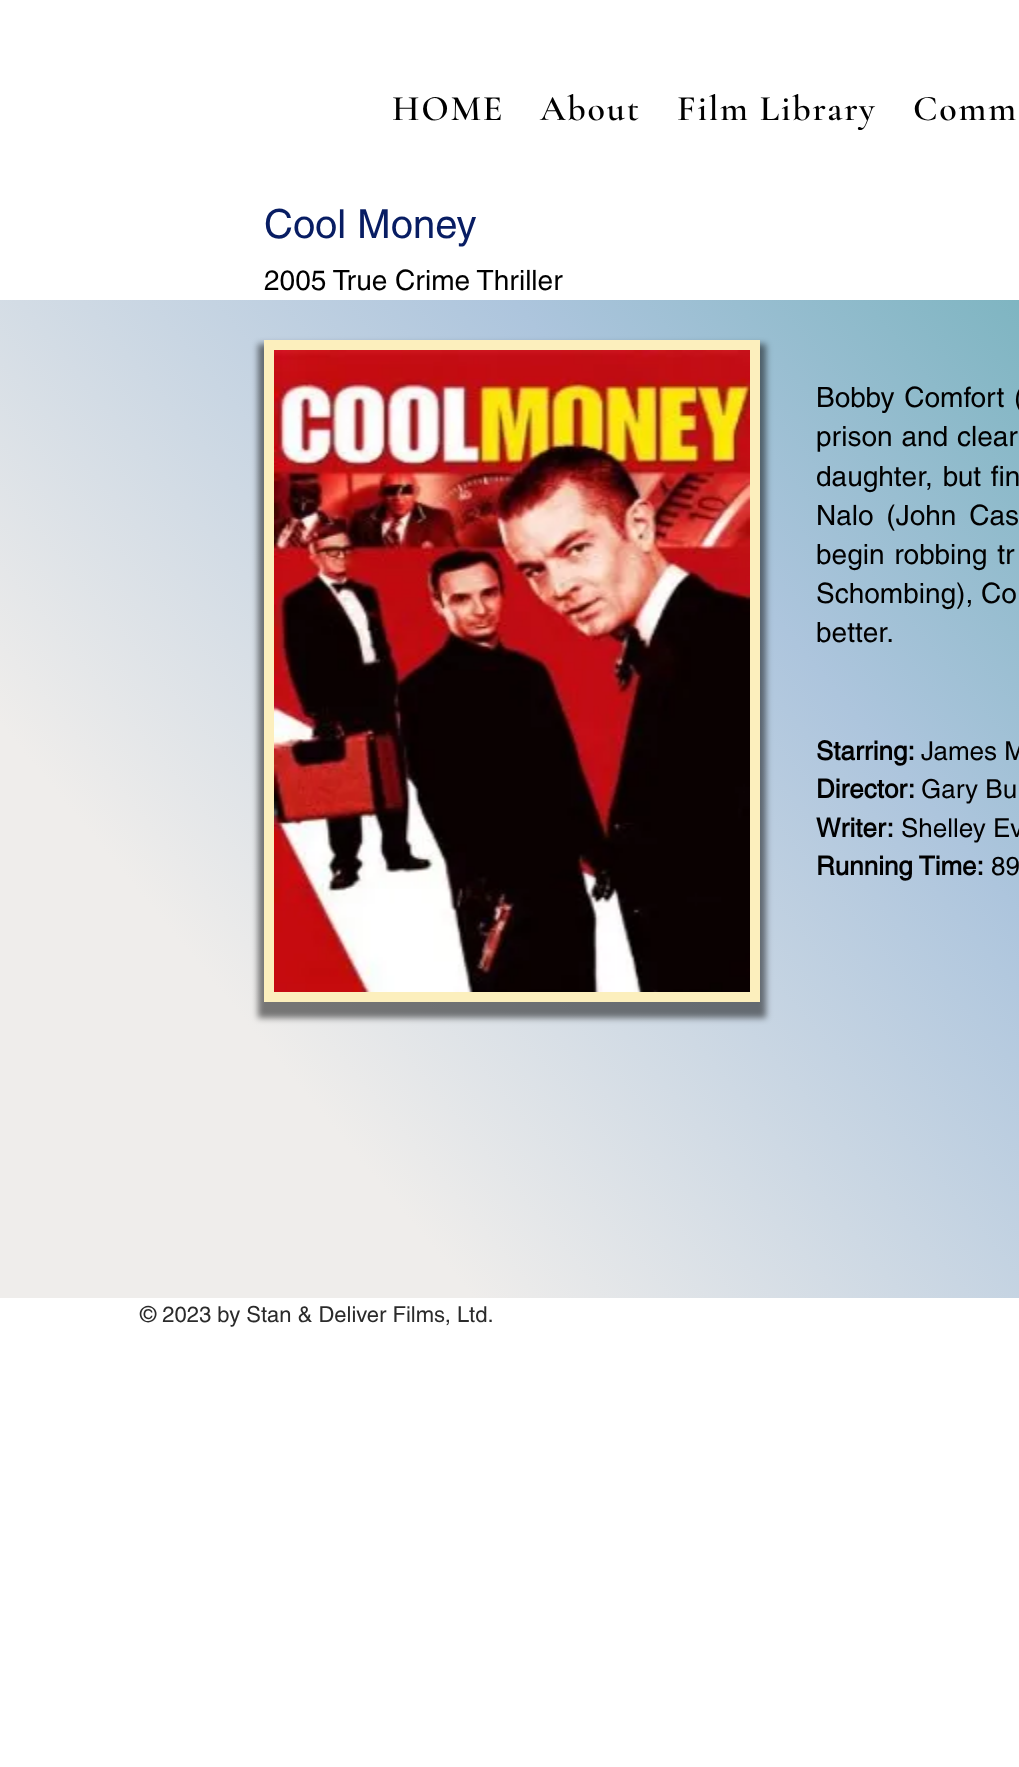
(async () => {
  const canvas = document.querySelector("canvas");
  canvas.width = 1019;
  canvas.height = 1767;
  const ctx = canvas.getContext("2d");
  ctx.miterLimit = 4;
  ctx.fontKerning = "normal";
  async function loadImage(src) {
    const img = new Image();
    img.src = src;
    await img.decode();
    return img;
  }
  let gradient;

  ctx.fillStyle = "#ffffff";
  ctx.fillRect(0, 0, 1019, 1767);
  gradient = ctx.createLinearGradient(152, 1482, 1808, 116);
  gradient.addColorStop(0.17, "#efedeb");
  gradient.addColorStop(0.48, "#adc5dd");
  gradient.addColorStop(0.81, "#59a8ab");
  ctx.fillStyle = gradient;
  ctx.fillRect(0, 300, 1019, 998);
  ctx.fillStyle = "rgba(0, 0, 0, 0.5)";
  ctx.filter = "blur(3px)";
  ctx.beginPath();
  ctx.rect(258, 344, 508, 674);
  ctx.fill();
  ctx.filter = "none";
  ctx.fillStyle = "#fcefbd";
  ctx.fillRect(264, 340, 496, 662);
  ctx.drawImage(await loadImage("img/1.png"), 274, 350, 476, 642);
  ctx.letterSpacing = "1.75px";
  ctx.font = "600 36px Cormorant Garamond";
  ctx.fillStyle = "#000000";
  for (const [text, x, y] of [
    ["HOME", 392, 120],
    ["About", 540, 120],
    ["Film Library", 677, 120],
    ["Comm", 913, 120],
  ]) {
    ctx.fillText(text, x, y);
  }
  ctx.letterSpacing = "0px";
  ctx.font = "40px helvetica";
  ctx.fillStyle = "#081d63";
  ctx.fillText("Cool Money", 264, 238);
  ctx.font = "28px helvetica";
  ctx.fillStyle = "#000000";
  ctx.fillText("2005 True Crime Thriller", 264, 290);
  ctx.wordSpacing = "2px";
  ctx.fillText("Bobby Comfort (", 816, 407);
  ctx.wordSpacing = "1px";
  ctx.fillText("prison and clear", 816, 446);
  ctx.wordSpacing = "2px";
  ctx.fillText("daughter, but fin", 816, 486);
  ctx.wordSpacing = "5px";
  ctx.fillText("Nalo (John Cas", 816, 525);
  ctx.wordSpacing = "2px";
  ctx.fillText("begin robbing tr", 816, 564);
  ctx.wordSpacing = "0px";
  ctx.fillText("Schombing), Co", 816, 603);
  ctx.fillText("better.", 816, 642);
  ctx.font = "bold 26px helvetica";
  ctx.fillText("Starring:", 816, 760);
  ctx.font = "26px helvetica";
  ctx.fillText("James M", 921, 760);
  ctx.font = "bold 26px helvetica";
  ctx.fillText("Director:", 816, 798);
  ctx.font = "26px helvetica";
  ctx.fillText("Gary Bu", 921, 798);
  ctx.font = "bold 26px helvetica";
  ctx.fillText("Writer:", 816, 837);
  ctx.font = "26px helvetica";
  ctx.fillText("Shelley Ev", 901, 837);
  ctx.font = "bold 26px helvetica";
  ctx.fillText("Running Time:", 816, 875);
  ctx.font = "26px helvetica";
  ctx.fillText("89", 991, 875);
  ctx.font = "22px helvetica";
  ctx.fillStyle = "#2b2b2b";
  ctx.fillText("© 2023 by Stan & Deliver Films, Ltd.", 140, 1322);
})();
